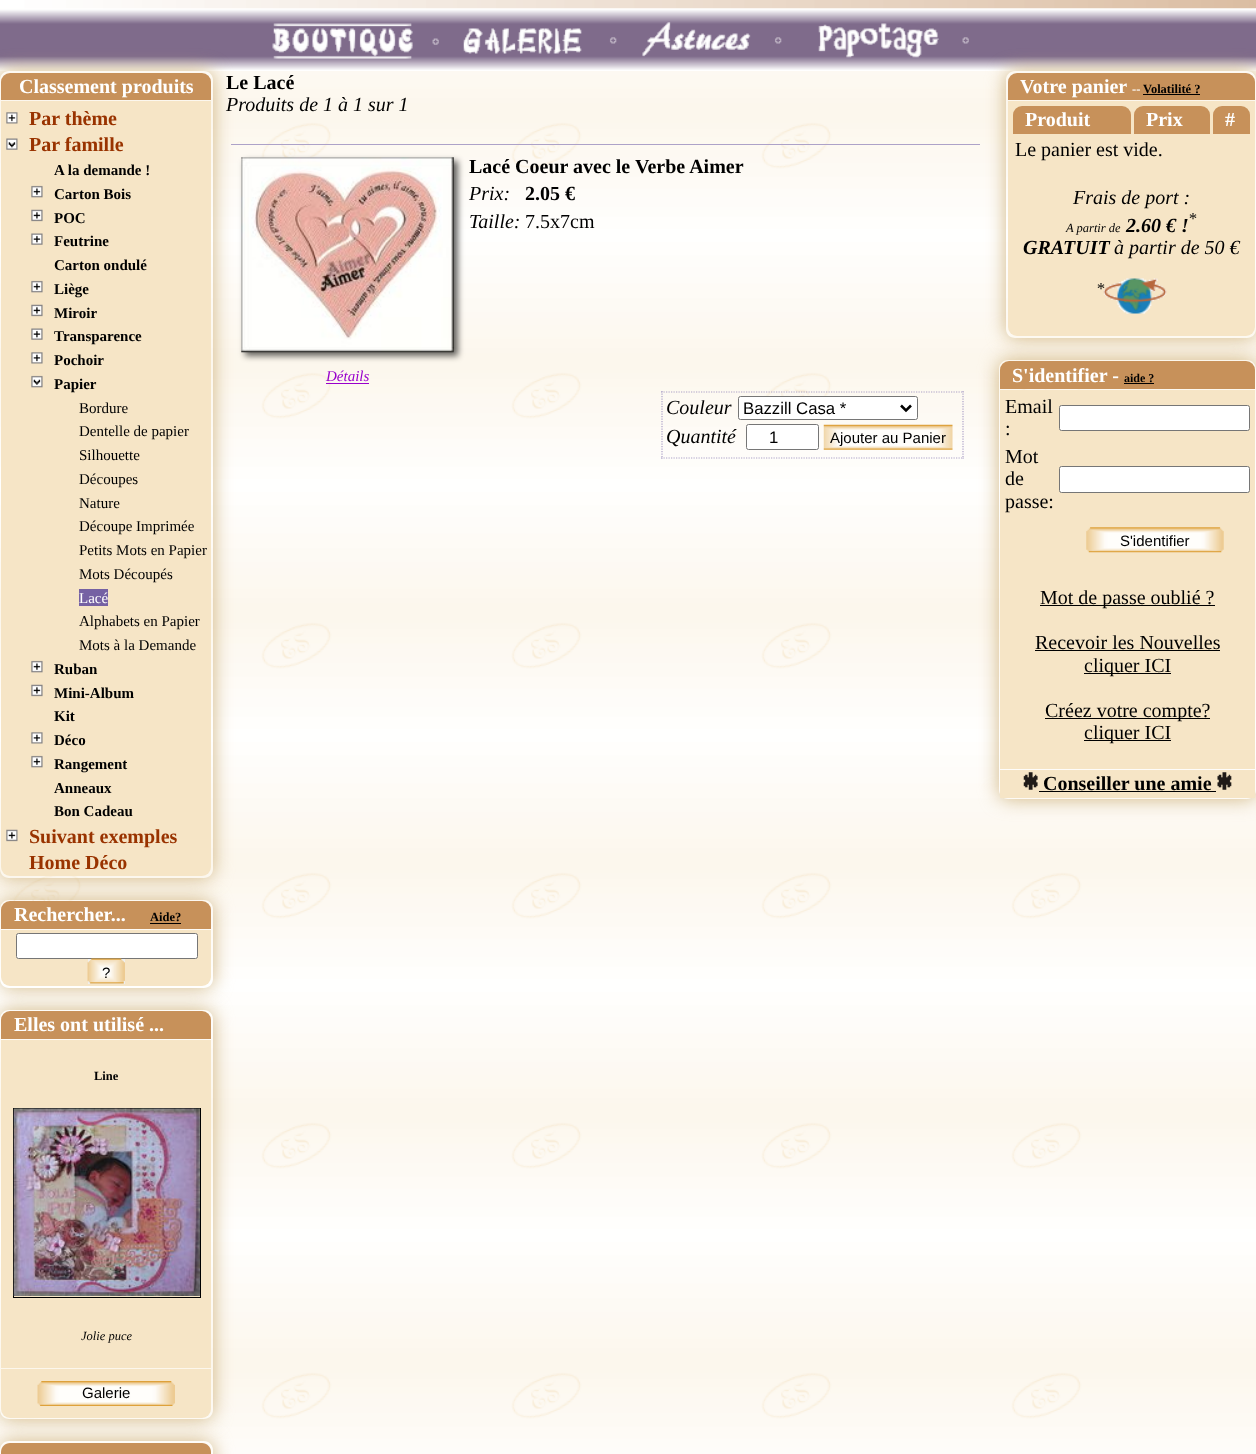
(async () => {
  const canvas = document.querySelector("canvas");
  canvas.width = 1256;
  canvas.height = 1454;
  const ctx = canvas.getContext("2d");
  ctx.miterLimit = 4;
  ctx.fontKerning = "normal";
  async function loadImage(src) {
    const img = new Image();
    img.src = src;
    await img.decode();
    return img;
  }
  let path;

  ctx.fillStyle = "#ffffff";
  ctx.fillRect(0, 0, 1256, 1454);
  ctx.drawImage(await loadImage("img/1.png"), 0, 8, 1256, 1446);
  ctx.drawImage(await loadImage("img/2.png"), 0, 0, 1256, 9);
  ctx.drawImage(await loadImage("img/3.png"), 0, 8, 1256, 63);
  ctx.drawImage(await loadImage("img/4.png"), 272, 23, 167, 36);
  ctx.drawImage(await loadImage("img/5.png"), 463, 28, 154, 26);
  ctx.drawImage(await loadImage("img/6.png"), 642, 22, 140, 35);
  ctx.drawImage(await loadImage("img/7.png"), 818, 23, 151, 35);
  ctx.save();
  path = new Path2D("M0 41H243V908H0ZM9 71H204C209 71 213 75 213 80V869C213 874 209 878 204 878H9C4 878 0 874 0 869V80C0 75 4 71 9 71Z");
  ctx.clip(path, "evenodd");
  ctx.fillStyle = "rgba(204, 174, 118, 0.9)";
  ctx.filter = "blur(9.5px)";
  ctx.beginPath();
  ctx.roundRect(0, 71, 213, 807, 9);
  ctx.fill();
  ctx.filter = "none";
  ctx.restore();
  ctx.fillStyle = "#c7915a";
  ctx.beginPath();
  ctx.roundRect(1, 73, 210, 27, [9, 9, 0, 0]);
  ctx.fill();
  ctx.fillStyle = "#f6e5c6";
  ctx.beginPath();
  ctx.roundRect(1, 101, 210, 775, [0, 0, 9, 9]);
  ctx.fill();
  ctx.drawImage(await loadImage("img/8.png"), 6, 112, 12, 12);
  ctx.drawImage(await loadImage("img/9.png"), 6, 138, 12, 12);
  ctx.drawImage(await loadImage("img/10.png"), 31, 185, 12, 13);
  ctx.drawImage(await loadImage("img/11.png"), 31, 209, 12, 13);
  ctx.drawImage(await loadImage("img/12.png"), 31, 233, 12, 12);
  ctx.drawImage(await loadImage("img/10.png"), 31, 280, 12, 13);
  ctx.drawImage(await loadImage("img/11.png"), 31, 304, 12, 13);
  ctx.drawImage(await loadImage("img/12.png"), 31, 328, 12, 12);
  ctx.drawImage(await loadImage("img/13.png"), 31, 352, 12, 12);
  ctx.drawImage(await loadImage("img/14.png"), 31, 375, 12, 13);
  ctx.fillStyle = "#7561a3";
  ctx.fillRect(79, 589, 29, 17);
  ctx.drawImage(await loadImage("img/10.png"), 31, 660, 12, 13);
  ctx.drawImage(await loadImage("img/11.png"), 31, 684, 12, 13);
  ctx.drawImage(await loadImage("img/13.png"), 31, 732, 12, 12);
  ctx.drawImage(await loadImage("img/10.png"), 31, 755, 12, 13);
  ctx.drawImage(await loadImage("img/15.png"), 6, 829, 12, 13);
  ctx.save();
  path = new Path2D("M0 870H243V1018H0ZM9 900H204C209 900 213 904 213 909V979C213 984 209 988 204 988H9C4 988 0 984 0 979V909C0 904 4 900 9 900Z");
  ctx.clip(path, "evenodd");
  ctx.fillStyle = "rgba(204, 174, 118, 0.9)";
  ctx.filter = "blur(9.5px)";
  ctx.beginPath();
  ctx.roundRect(0, 900, 213, 88, 9);
  ctx.fill();
  ctx.filter = "none";
  ctx.restore();
  ctx.fillStyle = "#c7915a";
  ctx.beginPath();
  ctx.roundRect(1, 901, 210, 28, [9, 9, 0, 0]);
  ctx.fill();
  ctx.fillStyle = "#000000";
  ctx.fillRect(150, 923, 31, 1);
  ctx.fillStyle = "#f6e5c6";
  ctx.beginPath();
  ctx.roundRect(1, 930, 210, 56, [0, 0, 9, 9]);
  ctx.fill();
  ctx.fillStyle = "#ffffff";
  ctx.beginPath();
  ctx.roundRect(16.5, 933.5, 181, 25, 2);
  ctx.fill();
  ctx.strokeStyle = "#767676";
  ctx.stroke();
  ctx.save();
  path = new Path2D("M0 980H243V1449H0ZM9 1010H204C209 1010 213 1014 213 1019V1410C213 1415 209 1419 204 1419H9C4 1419 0 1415 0 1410V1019C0 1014 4 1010 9 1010Z");
  ctx.clip(path, "evenodd");
  ctx.fillStyle = "rgba(204, 174, 118, 0.9)";
  ctx.filter = "blur(9.5px)";
  ctx.beginPath();
  ctx.roundRect(0, 1010, 213, 409, 9);
  ctx.fill();
  ctx.filter = "none";
  ctx.restore();
  ctx.fillStyle = "#efefef";
  ctx.fillRect(88, 959, 37, 25);
  ctx.drawImage(await loadImage("img/16.png"), 87, 958, 38, 26);
  ctx.fillStyle = "#c7915a";
  ctx.beginPath();
  ctx.roundRect(1, 1011, 210, 28, [9, 9, 0, 0]);
  ctx.fill();
  ctx.fillStyle = "#f6e5c6";
  ctx.fillRect(1, 1040, 210, 328);
  ctx.strokeStyle = "#000000";
  ctx.strokeRect(13.5, 1108.5, 187, 189);
  ctx.drawImage(await loadImage("img/17.png"), 13, 1108, 187, 188);
  ctx.beginPath();
  ctx.roundRect(1, 1369, 210, 49, [0, 0, 9, 9]);
  ctx.fill();
  ctx.drawImage(await loadImage("img/18.png"), 37, 1381, 138, 25);
  ctx.save();
  path = new Path2D("M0 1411H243V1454H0ZM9 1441H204C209 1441 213 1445 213 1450V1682C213 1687 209 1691 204 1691H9C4 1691 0 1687 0 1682V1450C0 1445 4 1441 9 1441Z");
  ctx.clip(path, "evenodd");
  ctx.fillStyle = "rgba(204, 174, 118, 0.9)";
  ctx.filter = "blur(9.5px)";
  ctx.beginPath();
  ctx.roundRect(0, 1441, 213, 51, 9);
  ctx.fill();
  ctx.filter = "none";
  ctx.restore();
  ctx.fillStyle = "#c7915a";
  path = new Path2D("M10 1443H202C207 1443 211 1447 211 1452V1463H1V1452C1 1447 5 1443 10 1443Z");
  ctx.fill(path);
  ctx.fillStyle = "#ada2c8";
  ctx.fillRect(231, 144, 749, 1);
  ctx.fillStyle = "rgba(0, 0, 0, 0.6)";
  ctx.filter = "blur(3px)";
  ctx.beginPath();
  ctx.rect(245, 161, 213, 195);
  ctx.fill();
  ctx.filter = "none";
  ctx.drawImage(await loadImage("img/19.png"), 241, 157, 213, 196);
  ctx.fillStyle = "#9900cc";
  ctx.fillRect(326, 383, 43, 1);
  path = new Path2D("M661 392H964");
  ctx.strokeStyle = "#ada2c8";
  ctx.lineWidth = 1.2;
  ctx.setLineDash([1.25, 1.25]);
  ctx.stroke(path);
  path = new Path2D("M963 391V459");
  ctx.stroke(path);
  path = new Path2D("M661 458H964");
  ctx.stroke(path);
  path = new Path2D("M662 391V459");
  ctx.stroke(path);
  ctx.fillStyle = "#ffffff";
  ctx.beginPath();
  ctx.roundRect(738.5, 396.5, 179, 23, 2);
  ctx.fill();
  ctx.strokeStyle = "#767676";
  ctx.lineWidth = 1;
  ctx.setLineDash([]);
  ctx.stroke();
  path = new Path2D("M901 405.5L906 410.5L911 405.5");
  ctx.strokeStyle = "#000000";
  ctx.lineWidth = 2.5;
  ctx.stroke(path);
  ctx.beginPath();
  ctx.roundRect(746.5, 424.5, 72, 25, 2);
  ctx.fill();
  ctx.strokeStyle = "#767676";
  ctx.lineWidth = 1;
  ctx.stroke();
  ctx.drawImage(await loadImage("img/20.png"), 823, 424, 130, 26);
  ctx.save();
  path = new Path2D("M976 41H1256V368H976ZM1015 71H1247C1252 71 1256 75 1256 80V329C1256 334 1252 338 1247 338H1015C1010 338 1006 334 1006 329V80C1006 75 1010 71 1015 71Z");
  ctx.clip(path, "evenodd");
  ctx.fillStyle = "rgba(204, 174, 118, 0.9)";
  ctx.filter = "blur(9.5px)";
  ctx.beginPath();
  ctx.roundRect(1006, 71, 250, 267, 9);
  ctx.fill();
  ctx.filter = "none";
  ctx.restore();
  ctx.fillStyle = "#c7915a";
  ctx.beginPath();
  ctx.roundRect(1008, 73, 247, 27, [9, 9, 0, 0]);
  ctx.fill();
  ctx.fillStyle = "#000000";
  ctx.fillRect(1143, 94, 57, 1);
  ctx.fillStyle = "#f6e5c6";
  ctx.beginPath();
  ctx.roundRect(1008, 101, 247, 235, [0, 0, 9, 9]);
  ctx.fill();
  ctx.fillStyle = "#c7915a";
  ctx.beginPath();
  ctx.roundRect(1013, 106, 118, 28, [9, 9, 0, 0]);
  ctx.fill();
  ctx.beginPath();
  ctx.roundRect(1134, 106, 76, 28, [9, 9, 0, 0]);
  ctx.fill();
  ctx.beginPath();
  ctx.roundRect(1213, 106, 37, 28, [9, 9, 0, 0]);
  ctx.fill();
  ctx.save();
  path = new Path2D("M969 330H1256V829H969ZM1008 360H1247C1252 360 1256 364 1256 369V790C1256 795 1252 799 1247 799H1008C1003 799 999 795 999 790V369C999 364 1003 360 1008 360Z");
  ctx.clip(path, "evenodd");
  ctx.fillStyle = "rgba(204, 174, 118, 0.9)";
  ctx.filter = "blur(9.5px)";
  ctx.beginPath();
  ctx.roundRect(999, 360, 257, 439, 9);
  ctx.fill();
  ctx.filter = "none";
  ctx.restore();
  ctx.beginPath();
  ctx.roundRect(1000, 361, 255, 28, [9, 9, 0, 0]);
  ctx.fill();
  ctx.fillStyle = "#000000";
  ctx.fillRect(1124, 383, 30, 1);
  ctx.fillStyle = "#f6e5c6";
  ctx.fillRect(1000, 390, 255, 379);
  ctx.fillStyle = "#ffffff";
  ctx.beginPath();
  ctx.roundRect(1059.5, 405.5, 190, 25, 2);
  ctx.fill();
  ctx.stroke();
  ctx.beginPath();
  ctx.roundRect(1059.5, 466.5, 190, 26, 2);
  ctx.fill();
  ctx.stroke();
  ctx.drawImage(await loadImage("img/22.png"), 1086, 527, 138, 26);
  for (const [x, y, w, h, color] of [
    [1040, 605, 175, 1, "#000000"],
    [1035, 650, 185, 1, "#000000"],
    [1084, 673, 87, 1, "#000000"],
    [1045, 718, 165, 1, "#000000"],
    [1084, 740, 87, 1, "#000000"],
    [1000, 770, 255, 28, "#f6e5c6"],
  ]) {
    ctx.fillStyle = color;
    ctx.fillRect(x, y, w, h);
  }
  ctx.drawImage(await loadImage("img/23.png"), 1023, 772, 15, 18);
  ctx.fillStyle = "#000000";
  ctx.fillRect(1039, 791, 177, 1);
  ctx.drawImage(await loadImage("img/24.png"), 1217, 772, 15, 18);
  ctx.font = "bold 20px Liberation Serif";
  ctx.fillStyle = "#ffffff";
  ctx.fillText("Classement produits", 19, 93);
  ctx.fillStyle = "#993300";
  ctx.fillText("Par thème", 29, 125);
  ctx.fillText("Par famille", 29, 151);
  ctx.font = "bold 15px Liberation Serif";
  ctx.fillStyle = "#000000";
  for (const [text, x, y] of [
    ["A la demande !", 54, 175],
    ["Carton Bois", 54, 199],
    ["POC", 54, 223],
    ["Feutrine", 54, 246],
    ["Carton ondulé", 54, 270],
    ["Liège", 54, 294],
    ["Miroir", 54, 318],
    ["Transparence", 54, 341],
    ["Pochoir", 54, 365],
    ["Papier", 54, 389],
  ]) {
    ctx.fillText(text, x, y);
  }
  ctx.font = "15px Liberation Serif";
  for (const [text, x, y] of [
    ["Bordure", 79, 413],
    ["Dentelle de papier", 79, 436],
    ["Silhouette", 79, 460],
    ["Découpes", 79, 484],
    ["Nature", 79, 508],
    ["Découpe Imprimée", 79, 531],
    ["Petits Mots en Papier", 79, 555],
    ["Mots Découpés", 79, 579],
  ]) {
    ctx.fillText(text, x, y);
  }
  ctx.fillStyle = "#ffffff";
  ctx.fillText("Lacé", 79, 603);
  ctx.fillStyle = "#000000";
  ctx.fillText("Alphabets en Papier", 79, 626);
  ctx.fillText("Mots à la Demande", 79, 650);
  ctx.font = "bold 15px Liberation Serif";
  for (const [text, x, y] of [
    ["Ruban", 54, 674],
    ["Mini-Album", 54, 698],
    ["Kit", 54, 721],
    ["Déco", 54, 745],
    ["Rangement", 54, 769],
    ["Anneaux", 54, 793],
    ["Bon Cadeau", 54, 816],
  ]) {
    ctx.fillText(text, x, y);
  }
  ctx.font = "bold 20px Liberation Serif";
  ctx.fillStyle = "#993300";
  ctx.fillText("Suivant exemples", 29, 843);
  ctx.fillText("Home Déco", 29, 869);
  ctx.fillStyle = "#ffffff";
  ctx.fillText("Rechercher...", 14, 921);
  ctx.font = "bold 12.5px Liberation Serif";
  ctx.fillStyle = "#000000";
  ctx.fillText("Aide?", 150, 921);
  ctx.font = "15px Liberation Sans";
  ctx.fillText("?", 102, 978);
  ctx.font = "bold 20px Liberation Serif";
  ctx.fillStyle = "#ffffff";
  ctx.fillText("Elles ont utilisé ...", 14, 1031);
  ctx.font = "bold 12.5px Liberation Serif";
  ctx.fillStyle = "#000000";
  ctx.fillText("Line", 94, 1080);
  ctx.font = "italic 12.5px Liberation Serif";
  ctx.fillText("Jolie puce", 81, 1340);
  ctx.font = "15px Liberation Sans";
  ctx.fillText("Galerie", 82, 1398);
  ctx.font = "bold 20px Liberation Serif";
  ctx.fillText("Le Lacé", 226, 89);
  ctx.font = "italic 20px Liberation Serif";
  ctx.fillText("Produits de 1 à 1 sur 1", 226, 111);
  ctx.font = "bold 20px Liberation Serif";
  ctx.fillText("Lacé Coeur avec le Verbe Aimer", 469, 173);
  ctx.font = "italic 20px Liberation Serif";
  ctx.fillText("Prix:", 469, 200);
  ctx.font = "bold 20px Liberation Serif";
  ctx.fillText("2.05 €", 525, 200);
  ctx.font = "italic 20px Liberation Serif";
  ctx.fillText("Taille:", 469, 228);
  ctx.font = "20px Liberation Serif";
  ctx.fillText("7.5x7cm", 525, 228);
  ctx.font = "italic 15px Liberation Serif";
  ctx.fillStyle = "#9900cc";
  ctx.fillText("Détails", 326, 381);
  ctx.font = "italic 20px Liberation Serif";
  ctx.fillStyle = "#000000";
  ctx.fillText("Couleur", 666, 414);
  ctx.font = "16.75px Liberation Sans";
  ctx.fillText("Bazzill Casa *", 743, 414);
  ctx.font = "italic 20px Liberation Serif";
  ctx.fillText("Quantité", 666, 443);
  ctx.font = "16.75px Liberation Sans";
  ctx.fillText("1", 769, 443);
  ctx.font = "15px Liberation Sans";
  ctx.fillText("Ajouter au Panier", 830, 443);
  ctx.font = "bold 20px Liberation Serif";
  ctx.fillStyle = "#ffffff";
  ctx.fillText("Votre panier", 1020, 93);
  ctx.font = "bold 12.5px Liberation Serif";
  ctx.fillText("--", 1132, 93);
  ctx.fillStyle = "#000000";
  ctx.fillText("Volatilité ?", 1143, 93);
  ctx.font = "bold 20px Liberation Serif";
  ctx.fillStyle = "#ffffff";
  for (const [text, x, y] of [
    ["Produit", 1025, 126],
    ["Prix", 1146, 126],
    ["#", 1225, 126],
  ]) {
    ctx.fillText(text, x, y);
  }
  ctx.font = "20px Liberation Serif";
  ctx.fillStyle = "#000000";
  ctx.fillText("Le panier est vide.", 1015, 156);
  ctx.font = "italic 20px Liberation Serif";
  ctx.fillText("Frais de port :", 1073, 204);
  ctx.font = "italic 16.75px Liberation Serif";
  ctx.fillText("*", 1188, 224);
  ctx.font = "italic 12.5px Liberation Serif";
  ctx.fillText("A partir de", 1066, 232);
  ctx.font = "italic bold 20px Liberation Serif";
  ctx.fillText("2.60 € !", 1126, 232);
  ctx.fillText("GRATUIT", 1023, 254);
  ctx.font = "italic 20px Liberation Serif";
  ctx.fillText("à partir de 50 €", 1114, 254);
  ctx.font = "italic 16.75px Liberation Serif";
  ctx.fillText("*", 1096, 294);
  ctx.drawImage(await loadImage("img/21.png"), 1103, 278, 64, 36);
  ctx.font = "bold 20px Liberation Serif";
  ctx.fillStyle = "#ffffff";
  ctx.fillText("S'identifier -", 1012, 382);
  ctx.font = "bold 12px Liberation Serif";
  ctx.fillStyle = "#000000";
  ctx.fillText("aide ?", 1124, 382);
  ctx.font = "20px Liberation Serif";
  for (const [text, x, y] of [
    ["Email", 1005, 413],
    [":", 1005, 435],
    ["Mot", 1005, 463],
    ["de", 1005, 485],
    ["passe:", 1005, 508],
  ]) {
    ctx.fillText(text, x, y);
  }
  ctx.font = "15px Liberation Sans";
  ctx.fillText("S'identifier", 1120, 546);
  ctx.font = "20px Liberation Serif";
  for (const [text, x, y] of [
    ["Mot de passe oublié ?", 1040, 604],
    ["Recevoir les Nouvelles", 1035, 649],
    ["cliquer ICI", 1084, 672],
    ["Créez votre compte?", 1045, 717],
    ["cliquer ICI", 1084, 739],
  ]) {
    ctx.fillText(text, x, y);
  }
  ctx.font = "bold 20px Liberation Serif";
  ctx.fillText("Conseiller une amie", 1043, 790);
})();
